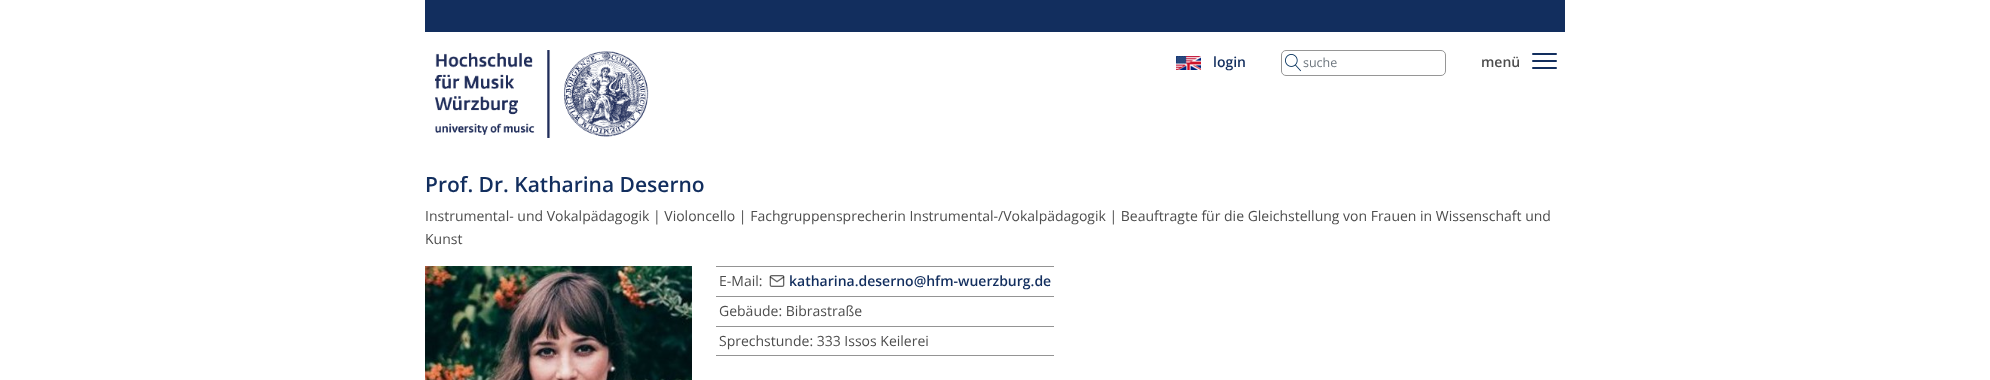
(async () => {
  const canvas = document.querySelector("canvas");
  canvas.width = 1990;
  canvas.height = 380;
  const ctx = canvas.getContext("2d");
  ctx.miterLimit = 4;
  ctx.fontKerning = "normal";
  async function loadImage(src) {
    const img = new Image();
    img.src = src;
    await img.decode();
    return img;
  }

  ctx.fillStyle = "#ffffff";
  ctx.fillRect(0, 0, 1990, 380);
  ctx.fillStyle = "#122e5e";
  ctx.fillRect(425, 0, 1140, 32);
  ctx.drawImage(await loadImage("img/1.png"), 435, 50, 214, 88);
  ctx.drawImage(await loadImage("img/2.png"), 1176, 56, 25, 14);
  ctx.drawImage(await loadImage("img/3.png"), 1285, 54, 16, 18);
  ctx.beginPath();
  ctx.roundRect(1281.5, 50.5, 164, 25, 4.5);
  ctx.strokeStyle = "#969696";
  ctx.stroke();
  ctx.beginPath();
  ctx.roundRect(1532, 53, 13, 2, [1, 0, 0, 1]);
  ctx.fill();
  ctx.beginPath();
  ctx.roundRect(1545, 53, 12, 2, [0, 1, 1, 0]);
  ctx.fill();
  ctx.beginPath();
  ctx.roundRect(1532, 60, 13, 2, [1, 0, 0, 1]);
  ctx.fill();
  ctx.beginPath();
  ctx.roundRect(1545, 60, 12, 2, [0, 1, 1, 0]);
  ctx.fill();
  ctx.beginPath();
  ctx.roundRect(1532, 67, 13, 2, [1, 0, 0, 1]);
  ctx.fill();
  ctx.beginPath();
  ctx.roundRect(1545, 67, 12, 2, [0, 1, 1, 0]);
  ctx.fill();
  ctx.drawImage(await loadImage("img/4.png"), 425, 266, 267, 114);
  ctx.fillStyle = "#949494";
  ctx.fillRect(716, 266, 338, 1);
  ctx.drawImage(await loadImage("img/5.png"), 769, 275, 16, 12);
  for (const [x, y, w, h, color] of [
    [716, 296, 338, 1, "#949494"],
    [716, 326, 338, 1, "#949494"],
    [716, 355, 338, 1, "#949494"],
  ]) {
    ctx.fillStyle = color;
    ctx.fillRect(x, y, w, h);
  }
  ctx.font = "600 14px Open Sans";
  ctx.fillStyle = "#122e5e";
  ctx.fillText("login", 1213, 67);
  ctx.font = "12.5px Open Sans";
  ctx.fillStyle = "#6c757d";
  ctx.fillText("suche", 1303, 67);
  ctx.font = "600 14px Open Sans";
  ctx.fillStyle = "#4d4d4d";
  ctx.fillText("menü", 1481, 67);
  ctx.font = "600 21px Open Sans";
  ctx.fillStyle = "#122e5e";
  ctx.fillText("Prof. Dr. Katharina Deserno", 425, 192);
  ctx.font = "14px Open Sans";
  ctx.fillStyle = "#4d4d4d";
  for (const [text, x, y] of [
    ["Instrumental- und Vokalpädagogik | Violoncello | Fachgruppensprecherin Instrumental-/Vokalpädagogik | Beauftragte für die Gleichstellung von Frauen in Wissenschaft und", 425, 221],
    ["Kunst", 425, 244],
    ["E-Mail:", 719, 286],
  ]) {
    ctx.fillText(text, x, y);
  }
  ctx.font = "600 14px Open Sans";
  ctx.fillStyle = "#122e5e";
  ctx.fillText("katharina.deserno@hfm-wuerzburg.de", 789, 286);
  ctx.font = "14px Open Sans";
  ctx.fillStyle = "#4d4d4d";
  ctx.fillText("Gebäude: Bibrastraße", 719, 316);
  ctx.fillText("Sprechstunde: 333 Issos Keilerei", 719, 346);
})();
